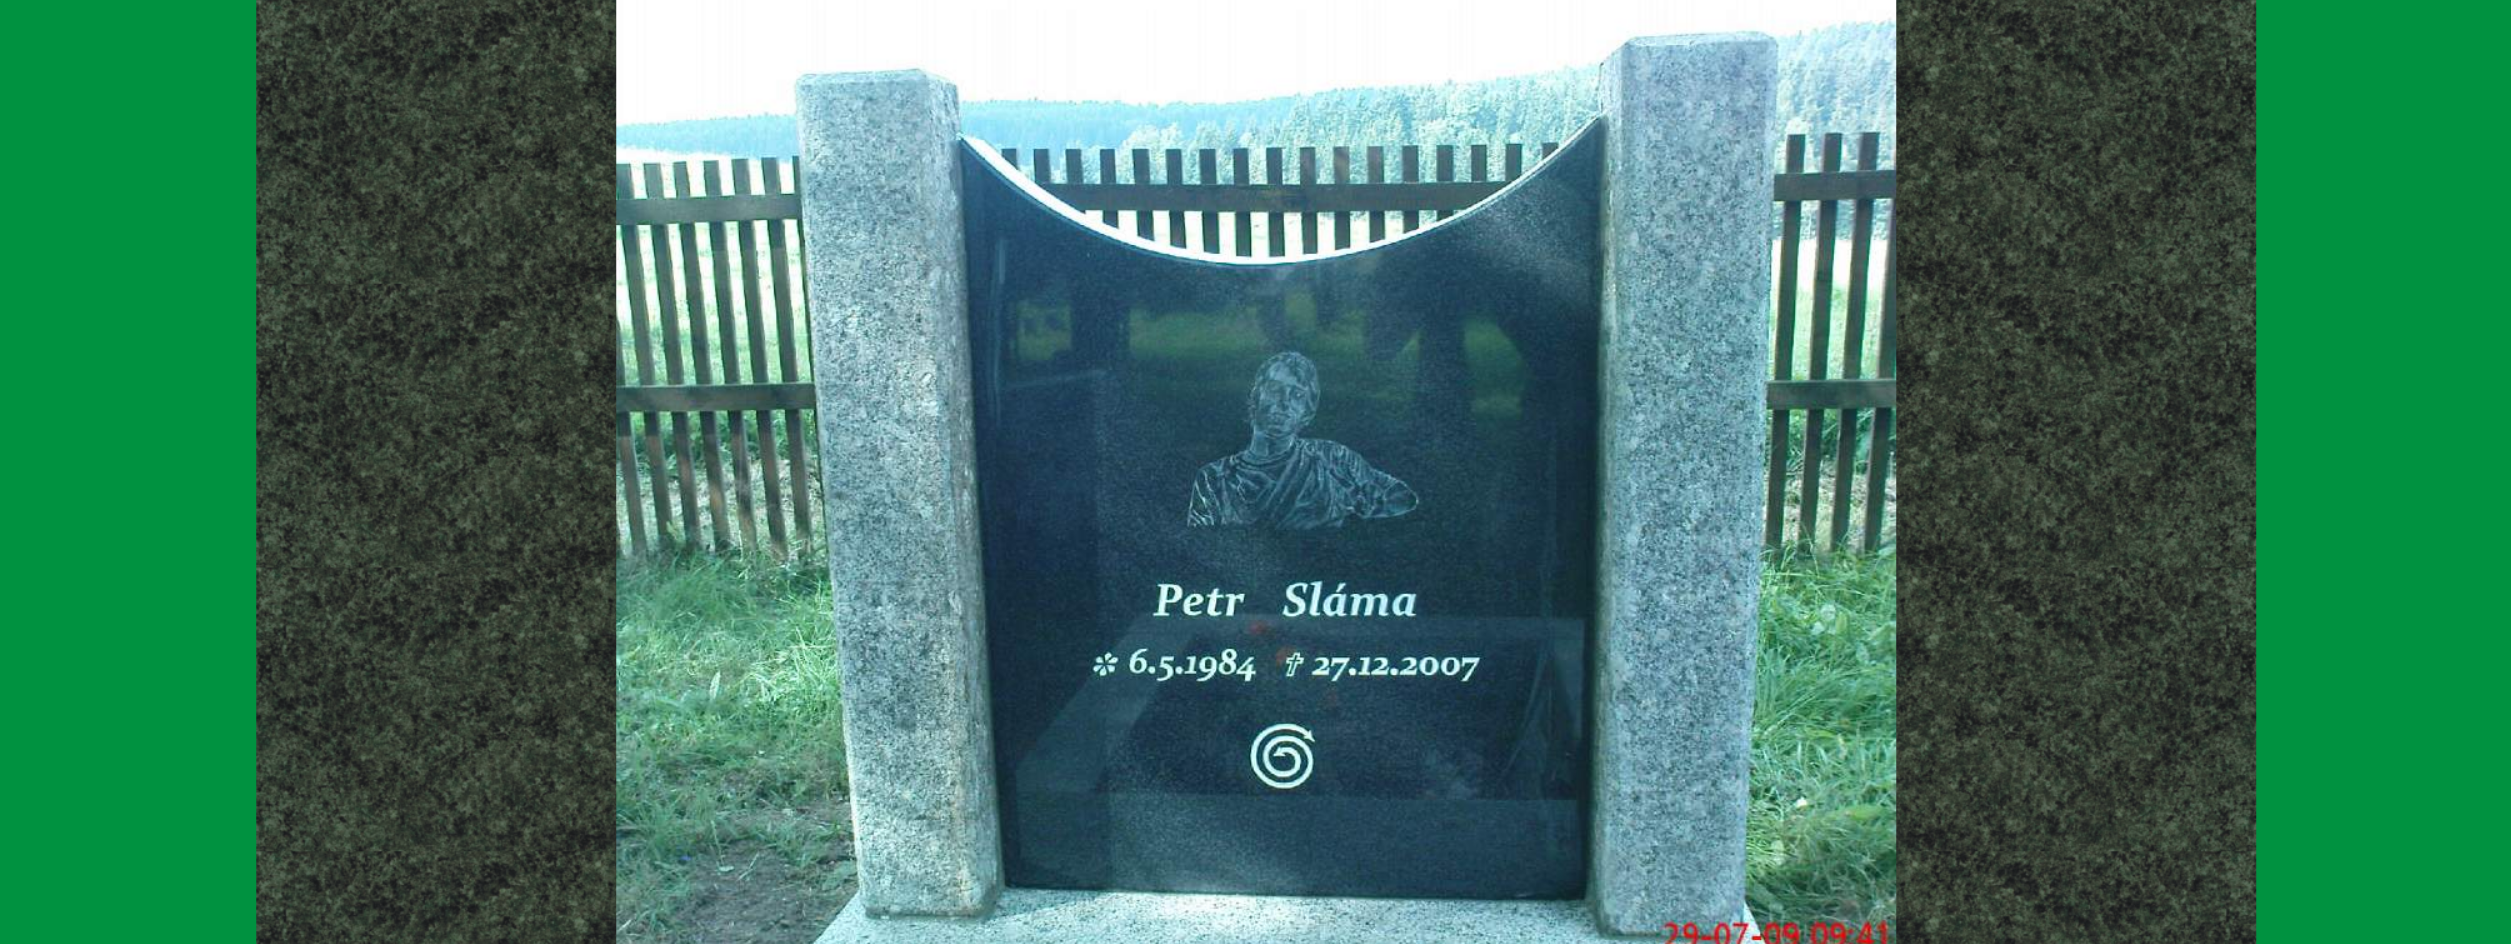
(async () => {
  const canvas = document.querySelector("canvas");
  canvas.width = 2511;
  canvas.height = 944;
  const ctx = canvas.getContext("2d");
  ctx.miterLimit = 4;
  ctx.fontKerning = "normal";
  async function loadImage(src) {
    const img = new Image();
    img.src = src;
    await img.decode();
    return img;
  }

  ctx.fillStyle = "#009240";
  ctx.fillRect(0, 0, 2511, 944);
  ctx.drawImage(await loadImage("img/1.png"), 256, 0, 2001, 944);
  ctx.drawImage(await loadImage("img/2.png"), 616, 0, 1281, 944);
})();
